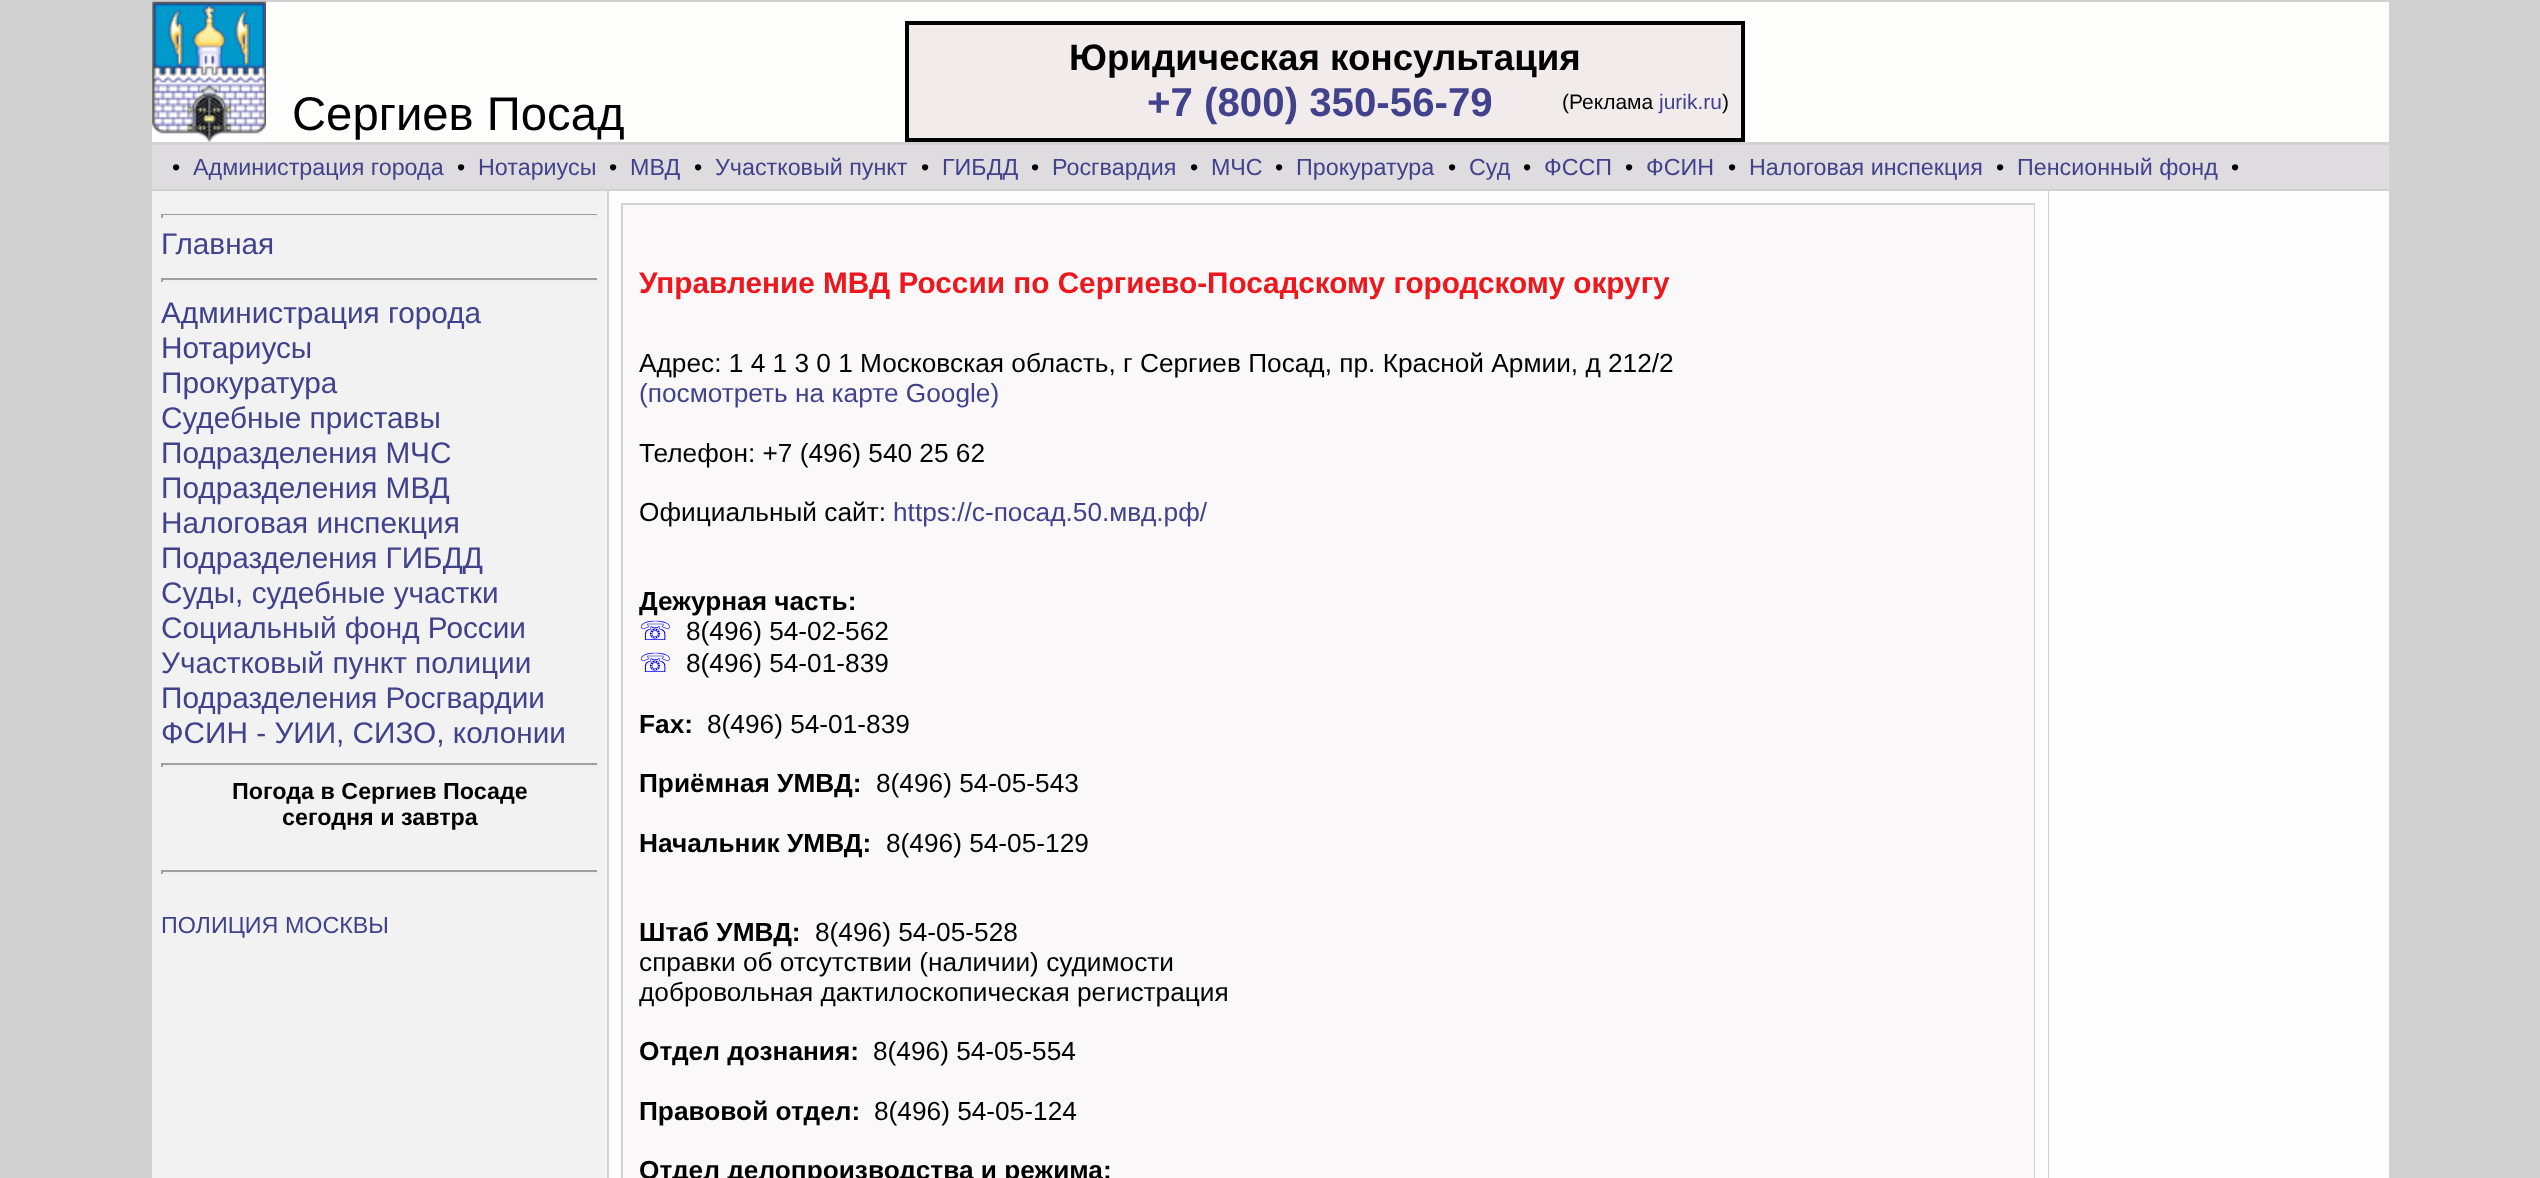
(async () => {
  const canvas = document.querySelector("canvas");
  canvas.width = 2540;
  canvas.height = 1178;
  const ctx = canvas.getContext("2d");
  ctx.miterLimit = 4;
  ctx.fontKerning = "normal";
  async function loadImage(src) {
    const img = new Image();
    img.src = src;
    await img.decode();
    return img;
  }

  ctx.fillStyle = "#d2d1d2";
  ctx.fillRect(0, 0, 2540, 1178);
  ctx.fillStyle = "#fefefc";
  ctx.fillRect(152, 2, 2237, 140);
  ctx.drawImage(await loadImage("img/1.png"), 152, 1, 114, 141);
  ctx.fillStyle = "#f1ebeb";
  ctx.beginPath();
  ctx.rect(907, 23, 836, 117);
  ctx.fill();
  ctx.strokeStyle = "#000000";
  ctx.lineWidth = 4;
  ctx.stroke();
  for (const [x, y, w, h, color] of [
    [152, 145, 2237, 44, "#dedcde"],
    [152, 191, 455, 987, "#f1f2f1"],
    [161, 214, 438, 1, "#9f9f9f"],
    [597, 214, 2, 4, "#eeeeee"],
    [161, 215, 438, 2, "#eeeeee"],
    [161, 214, 2, 4, "#9f9f9f"],
    [161, 278, 438, 2, "#9f9f9f"],
    [597, 278, 2, 4, "#eeeeee"],
    [161, 280, 438, 2, "#eeeeee"],
    [161, 278, 2, 4, "#9f9f9f"],
    [161, 763, 438, 2, "#9f9f9f"],
    [597, 763, 2, 4, "#eeeeee"],
    [161, 765, 438, 2, "#eeeeee"],
    [161, 763, 2, 4, "#9f9f9f"],
    [161, 870, 438, 2, "#9f9f9f"],
    [597, 870, 2, 4, "#eeeeee"],
    [161, 872, 438, 2, "#eeeeee"],
    [161, 870, 2, 4, "#9f9f9f"],
    [609, 191, 1439, 987, "#fefdfd"],
    [621, 203, 1414, 975, "#d2d1d2"],
    [623, 205, 1411, 973, "#faf8f8"],
    [2049, 191, 340, 987, "#fdfefd"],
  ]) {
    ctx.fillStyle = color;
    ctx.fillRect(x, y, w, h);
  }
  ctx.font = "47.25px Liberation Sans";
  ctx.fillStyle = "#000000";
  ctx.fillText("Сергиев Посад", 292, 130);
  ctx.font = "bold 36.75px Liberation Sans";
  ctx.fillText("Юридическая консультация", 1069, 70);
  ctx.font = "bold 40.25px Liberation Sans";
  ctx.fillStyle = "#42428c";
  ctx.fillText("+7 (800) 350-56-79", 1147, 116);
  ctx.font = "21px Liberation Sans";
  ctx.fillStyle = "#000000";
  ctx.fillText("(Реклама", 1562, 109);
  ctx.fillStyle = "#42428c";
  ctx.fillText("jurik.ru", 1659, 109);
  ctx.fillStyle = "#000000";
  ctx.fillText(")", 1722, 109);
  ctx.font = "23.3px Liberation Sans";
  ctx.fillText("•", 172, 175);
  ctx.fillStyle = "#42428c";
  ctx.fillText("Администрация города", 193, 175);
  ctx.fillStyle = "#000000";
  ctx.fillText("•", 457, 175);
  ctx.fillStyle = "#42428c";
  ctx.fillText("Нотариусы", 478, 175);
  ctx.fillStyle = "#000000";
  ctx.fillText("•", 609, 175);
  ctx.fillStyle = "#42428c";
  ctx.fillText("МВД", 630, 175);
  ctx.fillStyle = "#000000";
  ctx.fillText("•", 694, 175);
  ctx.fillStyle = "#42428c";
  ctx.fillText("Участковый пункт", 715, 175);
  ctx.fillStyle = "#000000";
  ctx.fillText("•", 921, 175);
  ctx.fillStyle = "#42428c";
  ctx.fillText("ГИБДД", 942, 175);
  ctx.fillStyle = "#000000";
  ctx.fillText("•", 1031, 175);
  ctx.fillStyle = "#42428c";
  ctx.fillText("Росгвардия", 1052, 175);
  ctx.fillStyle = "#000000";
  ctx.fillText("•", 1190, 175);
  ctx.fillStyle = "#42428c";
  ctx.fillText("МЧС", 1211, 175);
  ctx.fillStyle = "#000000";
  ctx.fillText("•", 1275, 175);
  ctx.fillStyle = "#42428c";
  ctx.fillText("Прокуратура", 1296, 175);
  ctx.fillStyle = "#000000";
  ctx.fillText("•", 1448, 175);
  ctx.fillStyle = "#42428c";
  ctx.fillText("Суд", 1469, 175);
  ctx.fillStyle = "#000000";
  ctx.fillText("•", 1523, 175);
  ctx.fillStyle = "#42428c";
  ctx.fillText("ФССП", 1544, 175);
  ctx.fillStyle = "#000000";
  ctx.fillText("•", 1625, 175);
  ctx.fillStyle = "#42428c";
  ctx.fillText("ФСИН", 1646, 175);
  ctx.fillStyle = "#000000";
  ctx.fillText("•", 1728, 175);
  ctx.fillStyle = "#42428c";
  ctx.fillText("Налоговая инспекция", 1749, 175);
  ctx.fillStyle = "#000000";
  ctx.fillText("•", 1996, 175);
  ctx.fillStyle = "#42428c";
  ctx.fillText("Пенсионный фонд", 2017, 175);
  ctx.fillStyle = "#000000";
  ctx.fillText("•", 2231, 175);
  ctx.font = "29.75px Liberation Sans";
  ctx.fillStyle = "#42428c";
  for (const [text, x, y] of [
    ["Главная", 161, 254],
    ["Администрация города", 161, 323],
    ["Нотариусы", 161, 358],
    ["Прокуратура", 161, 393],
    ["Судебные приставы", 161, 428],
    ["Подразделения МЧС", 161, 463],
    ["Подразделения МВД", 161, 498],
    ["Налоговая инспекция", 161, 533],
    ["Подразделения ГИБДД", 161, 568],
    ["Суды, судебные участки", 161, 603],
    ["Социальный фонд России", 161, 638],
    ["Участковый пункт полиции", 161, 673],
    ["Подразделения Росгвардии", 161, 708],
    ["ФСИН - УИИ, СИЗО, колонии", 161, 743],
  ]) {
    ctx.fillText(text, x, y);
  }
  ctx.font = "bold 23.3px Liberation Sans";
  ctx.fillStyle = "#000000";
  ctx.fillText("Погода в Сергиев Посаде", 232, 799);
  ctx.fillText("сегодня и завтра", 282, 825);
  ctx.font = "23.3px Liberation Sans";
  ctx.fillStyle = "#42428c";
  ctx.fillText("ПОЛИЦИЯ МОСКВЫ", 161, 933);
  ctx.font = "bold 29.75px Liberation Sans";
  ctx.fillStyle = "#ed171e";
  ctx.fillText("Управление МВД России по Сергиево-Посадскому городскому округу", 639, 293);
  ctx.font = "26.25px Liberation Sans";
  ctx.fillStyle = "#000000";
  ctx.fillText("Адрес: 1 4 1 3 0 1 Московская область, г Сергиев Посад, пр. Красной Армии, д 212/2", 639, 372);
  ctx.fillStyle = "#42428c";
  ctx.fillText("(посмотреть на карте Google)", 639, 402);
  ctx.fillStyle = "#000000";
  ctx.fillText("Телефон: +7 (496) 540 25 62", 639, 462);
  ctx.fillText("Официальный сайт:", 639, 521);
  ctx.fillStyle = "#42428c";
  ctx.fillText("https://с-посад.50.мвд.рф/", 893, 521);
  ctx.font = "bold 26.25px Liberation Sans";
  ctx.fillStyle = "#000000";
  ctx.fillText("Дежурная часть:", 639, 610);
  ctx.font = "26.25px DejaVu Sans";
  ctx.fillStyle = "#0000ff";
  ctx.fillText("☏", 639, 640);
  ctx.font = "26.25px Liberation Sans";
  ctx.fillStyle = "#000000";
  ctx.fillText("8(496) 54-02-562", 686, 640);
  ctx.font = "26.25px DejaVu Sans";
  ctx.fillStyle = "#0000ff";
  ctx.fillText("☏", 639, 672);
  ctx.font = "26.25px Liberation Sans";
  ctx.fillStyle = "#000000";
  ctx.fillText("8(496) 54-01-839", 686, 672);
  ctx.font = "bold 26.25px Liberation Sans";
  ctx.fillText("Fax:", 639, 733);
  ctx.font = "26.25px Liberation Sans";
  ctx.fillText("8(496) 54-01-839", 707, 733);
  ctx.font = "bold 26.25px Liberation Sans";
  ctx.fillText("Приёмная УМВД:", 639, 792);
  ctx.font = "26.25px Liberation Sans";
  ctx.fillText("8(496) 54-05-543", 876, 792);
  ctx.font = "bold 26.25px Liberation Sans";
  ctx.fillText("Начальник УМВД:", 639, 852);
  ctx.font = "26.25px Liberation Sans";
  ctx.fillText("8(496) 54-05-129", 886, 852);
  ctx.font = "bold 26.25px Liberation Sans";
  ctx.fillText("Штаб УМВД:", 639, 941);
  ctx.font = "26.25px Liberation Sans";
  for (const [text, x, y] of [
    ["8(496) 54-05-528", 815, 941],
    ["справки об отсутствии (наличии) судимости", 639, 971],
    ["добровольная дактилоскопическая регистрация", 639, 1001],
  ]) {
    ctx.fillText(text, x, y);
  }
  ctx.font = "bold 26.25px Liberation Sans";
  ctx.fillText("Отдел дознания:", 639, 1060);
  ctx.font = "26.25px Liberation Sans";
  ctx.fillText("8(496) 54-05-554", 873, 1060);
  ctx.font = "bold 26.25px Liberation Sans";
  ctx.fillText("Правовой отдел:", 639, 1120);
  ctx.font = "26.25px Liberation Sans";
  ctx.fillText("8(496) 54-05-124", 874, 1120);
  ctx.font = "bold 26.25px Liberation Sans";
  ctx.fillText("Отдел делопроизводства и режима:", 639, 1179);
})();
